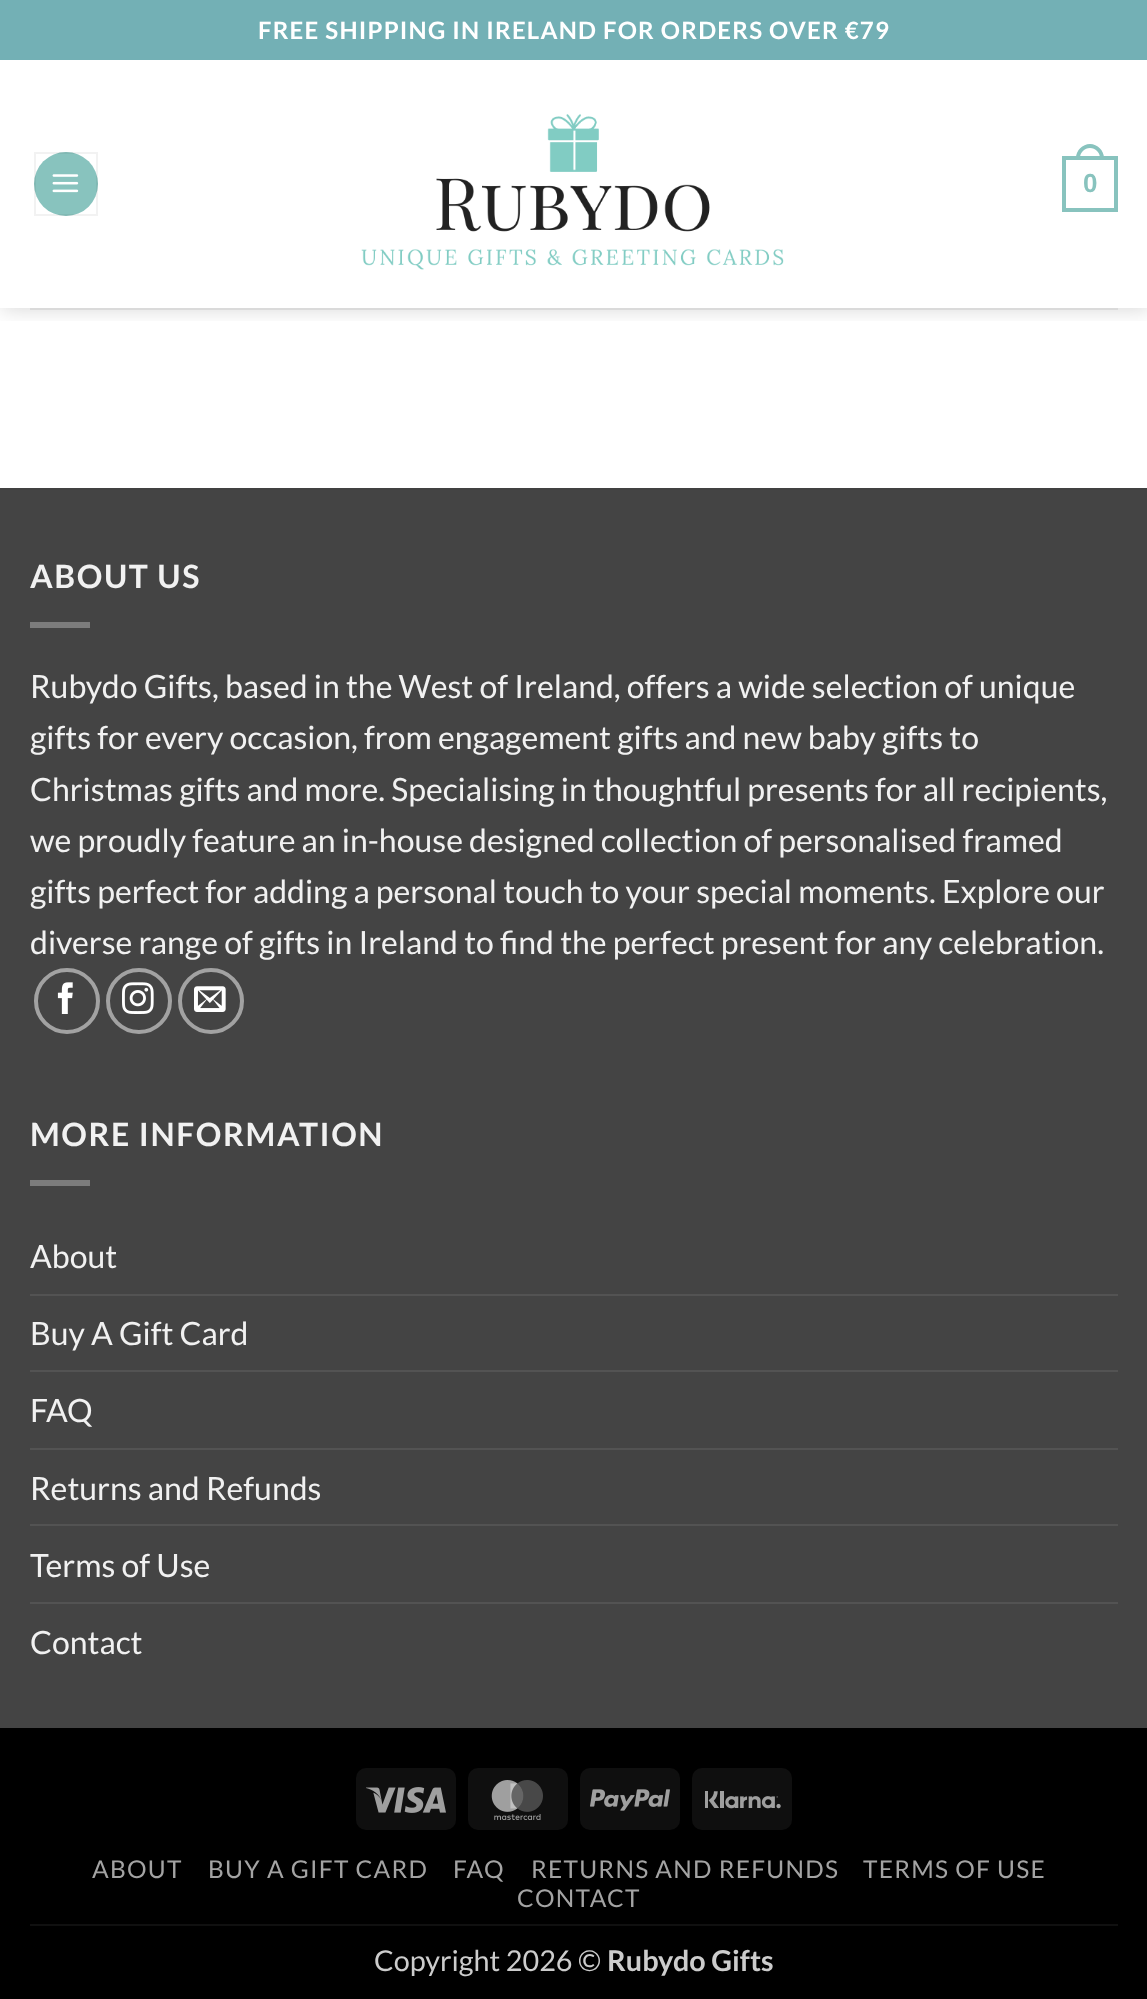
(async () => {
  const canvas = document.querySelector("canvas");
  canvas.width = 1147;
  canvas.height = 1999;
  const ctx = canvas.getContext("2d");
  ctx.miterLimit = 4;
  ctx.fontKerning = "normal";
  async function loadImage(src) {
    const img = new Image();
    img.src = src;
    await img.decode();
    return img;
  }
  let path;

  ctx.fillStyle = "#ffffff";
  ctx.fillRect(0, 0, 1147, 1999);
  ctx.save();
  ctx.beginPath();
  ctx.rect(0, 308, 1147, 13);
  ctx.clip();
  ctx.fillStyle = "rgba(0, 0, 0, 0.15)";
  ctx.filter = "blur(10px)";
  ctx.beginPath();
  ctx.rect(2, 2, 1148, 308);
  ctx.fill();
  ctx.filter = "none";
  ctx.restore();
  ctx.fillStyle = "#73b0b5";
  ctx.fillRect(0, 0, 1147, 60);
  ctx.fillStyle = "#88c3be";
  ctx.beginPath();
  ctx.arc(66, 184, 32, 0, Math.PI * 2);
  ctx.fill();
  ctx.strokeStyle = "rgba(0, 0, 0, 0.05)";
  ctx.lineWidth = 2;
  ctx.strokeRect(35, 153, 62, 62);
  ctx.drawImage(await loadImage("img/1.png"), 52, 174, 27, 19);
  ctx.drawImage(await loadImage("img/2.png"), 361, 114, 423, 156);
  ctx.strokeStyle = "#88c3be";
  ctx.lineWidth = 4;
  ctx.strokeRect(1064, 158, 52, 52);
  path = new Path2D("M1090 144C1097.5 144 1104 150.5 1104 158V160H1076V158C1076 150.5 1082.5 144 1090 144ZM1090 148C1095.5 148 1100 152.5 1100 158V160H1080V158C1080 152.5 1084.5 148 1090 148Z");
  ctx.fill(path, "evenodd");
  for (const [x, y, w, h, color] of [
    [30, 308, 1088, 2, "#dadada"],
    [0, 490, 1147, 1238, "#444444"],
    [0, 488, 1147, 2, "#414141"],
    [30, 622, 60, 6, "#7c7c7c"],
  ]) {
    ctx.fillStyle = color;
    ctx.fillRect(x, y, w, h);
  }
  ctx.beginPath();
  ctx.arc(67, 1001, 31, 0, Math.PI * 2);
  ctx.strokeStyle = "#a2a2a2";
  ctx.stroke();
  ctx.drawImage(await loadImage("img/3.png"), 57, 982, 16, 32);
  ctx.beginPath();
  ctx.arc(139, 1001, 31, 0, Math.PI * 2);
  ctx.stroke();
  ctx.drawImage(await loadImage("img/4.png"), 122, 982, 32, 32);
  ctx.beginPath();
  ctx.arc(211, 1001, 31, 0, Math.PI * 2);
  ctx.stroke();
  ctx.drawImage(await loadImage("img/5.png"), 194, 986, 32, 26);
  for (const [x, y, w, h, color] of [
    [30, 1180, 60, 6, "#7c7c7c"],
    [30, 1294, 1088, 2, "#535353"],
    [30, 1370, 1088, 2, "#535353"],
    [30, 1448, 1088, 2, "#535353"],
    [30, 1524, 1088, 2, "#535353"],
    [30, 1602, 1088, 2, "#535353"],
    [0, 1728, 1147, 271, "#000000"],
  ]) {
    ctx.fillStyle = color;
    ctx.fillRect(x, y, w, h);
  }
  ctx.fillStyle = "#0f0f0f";
  ctx.beginPath();
  ctx.roundRect(356, 1768, 100, 62, 10);
  ctx.fill();
  ctx.drawImage(await loadImage("img/6.png"), 366, 1787, 80, 26);
  ctx.beginPath();
  ctx.roundRect(468, 1768, 100, 62, 10);
  ctx.fill();
  ctx.drawImage(await loadImage("img/7.png"), 491, 1780, 52, 40);
  ctx.beginPath();
  ctx.roundRect(580, 1768, 100, 62, 10);
  ctx.fill();
  ctx.drawImage(await loadImage("img/8.png"), 590, 1789, 80, 22);
  ctx.beginPath();
  ctx.roundRect(692, 1768, 100, 62, 10);
  ctx.fill();
  ctx.drawImage(await loadImage("img/9.png"), 705, 1791, 76, 18);
  ctx.fillStyle = "#101010";
  ctx.fillRect(30, 1924, 1088, 2);
  ctx.letterSpacing = "1.2px";
  ctx.font = "bold 24px Lato";
  ctx.fillStyle = "#ffffff";
  ctx.fillText("FREE SHIPPING IN IRELAND FOR ORDERS OVER €79", 258, 39);
  ctx.letterSpacing = "0px";
  ctx.font = "bold 26px Liberation Sans";
  ctx.fillStyle = "#88c3be";
  ctx.fillText("0", 1083, 192);
  ctx.letterSpacing = "1.6px";
  ctx.font = "bold 32px Lato";
  ctx.fillStyle = "#f1f1f1";
  ctx.fillText("ABOUT US", 30, 588);
  ctx.letterSpacing = "0px";
  ctx.font = "32px Lato";
  for (const [text, x, y] of [
    ["Rubydo Gifts, based in the West of Ireland, offers a wide selection of unique", 30, 698],
    ["gifts for every occasion, from engagement gifts and new baby gifts to", 30, 749],
    ["Christmas gifts and more. Specialising in thoughtful presents for all recipients,", 30, 801],
    ["we proudly feature an in-house designed collection of personalised framed", 30, 852],
    ["gifts perfect for adding a personal touch to your special moments. Explore our", 30, 903],
    ["diverse range of gifts in Ireland to find the perfect present for any celebration.", 30, 954],
  ]) {
    ctx.fillText(text, x, y);
  }
  ctx.letterSpacing = "1.6px";
  ctx.font = "bold 32px Lato";
  ctx.fillText("MORE INFORMATION", 30, 1146);
  ctx.letterSpacing = "0px";
  ctx.font = "32px Lato";
  for (const [text, x, y] of [
    ["About", 30, 1268],
    ["Buy A Gift Card", 30, 1345],
    ["FAQ", 30, 1422],
    ["Returns and Refunds", 30, 1500],
    ["Terms of Use", 30, 1577],
    ["Contact", 30, 1654],
  ]) {
    ctx.fillText(text, x, y);
  }
  ctx.letterSpacing = "1.25px";
  ctx.font = "24.5px Lato";
  ctx.fillStyle = "#a3a3a3";
  for (const [text, x, y] of [
    ["ABOUT", 92, 1878],
    ["BUY A GIFT CARD", 208, 1878],
    ["FAQ", 453, 1878],
    ["RETURNS AND REFUNDS", 531, 1878],
    ["TERMS OF USE", 863, 1878],
    ["CONTACT", 517, 1907],
  ]) {
    ctx.fillText(text, x, y);
  }
  ctx.letterSpacing = "0px";
  ctx.font = "28.75px Lato";
  ctx.fillStyle = "#cccccc";
  ctx.fillText("Copyright 2026 ©", 374, 1971);
  ctx.font = "bold 28.75px Lato";
  ctx.fillText("Rubydo Gifts", 607, 1971);
})();
